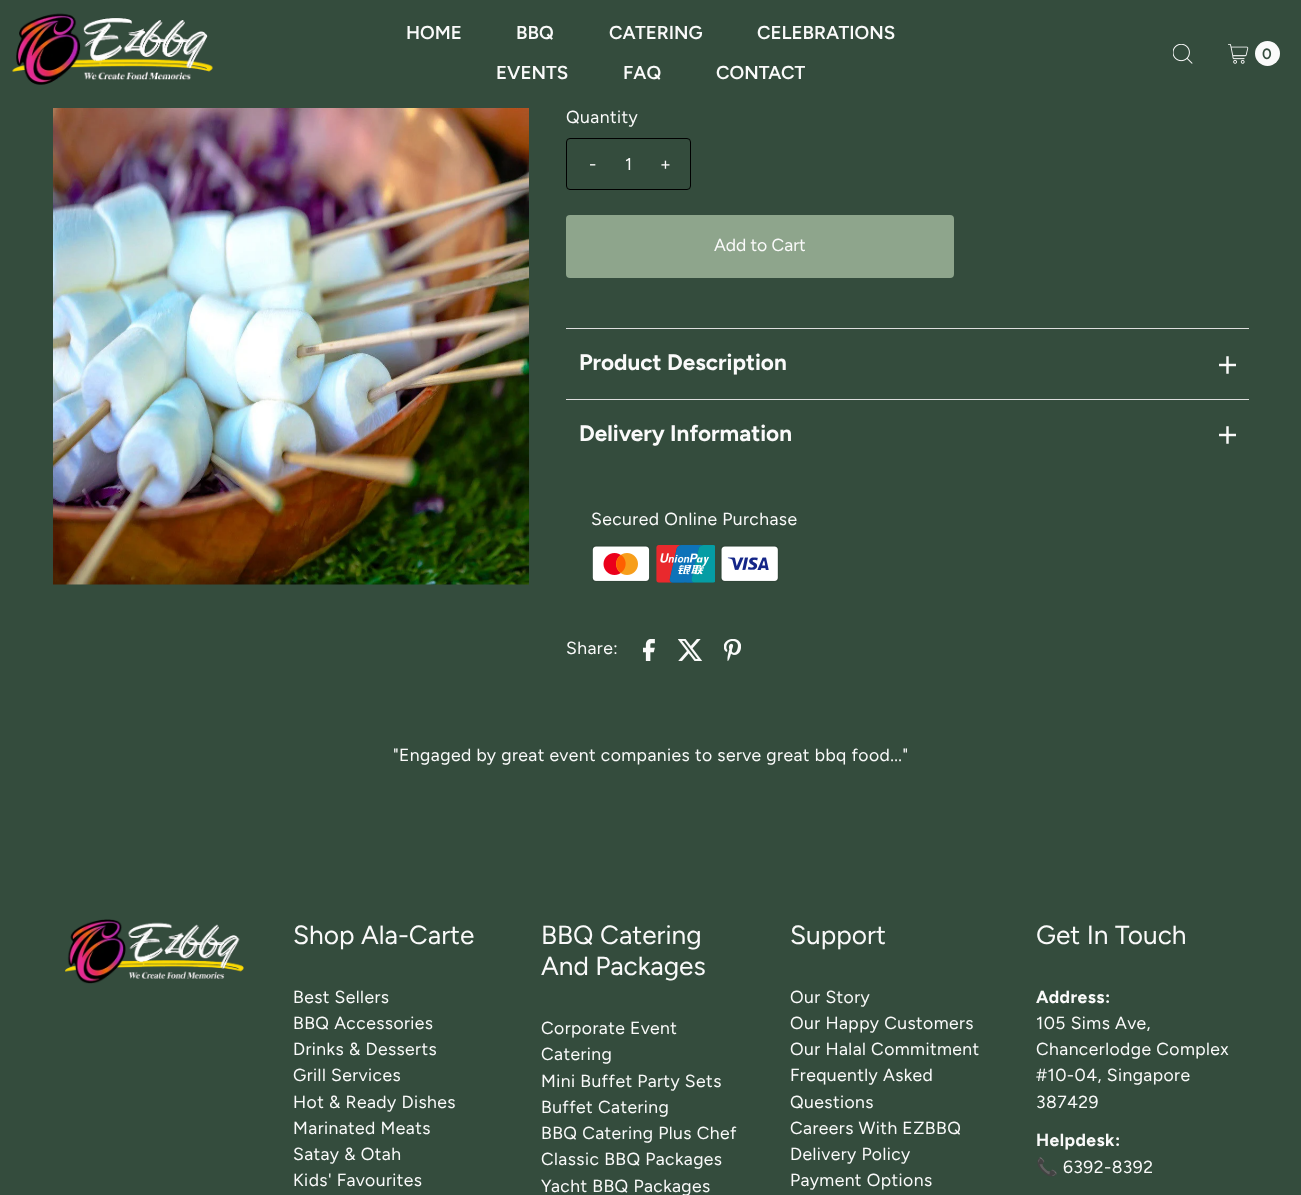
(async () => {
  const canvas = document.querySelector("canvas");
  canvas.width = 1301;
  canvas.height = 1195;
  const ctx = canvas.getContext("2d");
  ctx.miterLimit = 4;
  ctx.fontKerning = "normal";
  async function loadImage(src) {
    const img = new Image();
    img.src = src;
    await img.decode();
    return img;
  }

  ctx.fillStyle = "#344c3d";
  ctx.fillRect(0, 0, 1301, 1195);
  ctx.drawImage(await loadImage("img/1.png"), 12, 13, 201, 72);
  ctx.drawImage(await loadImage("img/2.png"), 1173, 44, 20, 20);
  ctx.drawImage(await loadImage("img/3.png"), 1228, 44, 21, 20);
  ctx.fillStyle = "#fafafa";
  ctx.beginPath();
  ctx.arc(1267.5, 53.5, 12.5, 0, Math.PI * 2);
  ctx.fill();
  ctx.drawImage(await loadImage("img/4.png"), 53, 108, 476, 477);
  ctx.beginPath();
  ctx.roundRect(566.5, 138.5, 124, 51, 3.5);
  ctx.strokeStyle = "#000000";
  ctx.stroke();
  ctx.fillStyle = "#8ea58c";
  ctx.beginPath();
  ctx.roundRect(566, 215, 388, 63, 4);
  ctx.fill();
  ctx.fillStyle = "#dedede";
  ctx.fillRect(566, 328, 683, 1);
  ctx.drawImage(await loadImage("img/5.png"), 1219, 356, 17, 18);
  ctx.fillRect(566, 399, 683, 1);
  ctx.drawImage(await loadImage("img/5.png"), 1219, 426, 17, 18);
  ctx.drawImage(await loadImage("img/6.png"), 592, 545, 58, 37);
  ctx.drawImage(await loadImage("img/7.png"), 656, 545, 59, 38);
  ctx.drawImage(await loadImage("img/8.png"), 720, 545, 59, 37);
  ctx.drawImage(await loadImage("img/9.png"), 643, 639, 12, 22);
  ctx.drawImage(await loadImage("img/10.png"), 678, 639, 25, 22);
  ctx.drawImage(await loadImage("img/11.png"), 724, 639, 17, 22);
  ctx.drawImage(await loadImage("img/12.png"), 65, 919, 179, 65);
  ctx.font = "600 18.75px Figtree";
  ctx.fillStyle = "#fafafa";
  for (const [text, x, y] of [
    ["HOME", 406, 39],
    ["BBQ", 516, 39],
    ["CATERING", 609, 39],
    ["CELEBRATIONS", 757, 39],
    ["EVENTS", 496, 79],
    ["FAQ", 623, 79],
    ["CONTACT", 716, 79],
  ]) {
    ctx.fillText(text, x, y);
  }
  ctx.font = "600 15px Figtree";
  ctx.fillStyle = "#344c3d";
  ctx.fillText("0", 1262, 59);
  ctx.letterSpacing = "0.45px";
  ctx.font = "17.5px Figtree";
  ctx.fillStyle = "#fafafa";
  ctx.fillText("Quantity", 566, 123);
  ctx.letterSpacing = "0px";
  ctx.fillText("-", 589, 170);
  ctx.font = "17px Figtree";
  ctx.fillText("1", 625, 170);
  ctx.font = "17.5px Figtree";
  ctx.fillText("+", 660, 170);
  ctx.fillText("Add to Cart", 714, 251);
  ctx.font = "bold 22.5px Figtree";
  ctx.fillText("Product Description", 579, 370);
  ctx.fillText("Delivery Information", 579, 441);
  ctx.letterSpacing = "0.45px";
  ctx.font = "17.5px Figtree";
  for (const [text, x, y] of [
    ["Secured Online Purchase", 591, 525],
    ["Share:", 566, 654],
    ["\"Engaged by great event companies to serve great bbq food...\"", 393, 761],
  ]) {
    ctx.fillText(text, x, y);
  }
  ctx.letterSpacing = "0px";
  ctx.font = "26.25px Figtree";
  ctx.fillText("Shop Ala-Carte", 293, 944);
  ctx.letterSpacing = "0.45px";
  ctx.font = "17.5px Figtree";
  for (const [text, x, y] of [
    ["Best Sellers", 293, 1003],
    ["BBQ Accessories", 293, 1029],
    ["Drinks & Desserts", 293, 1055],
    ["Grill Services", 293, 1081],
    ["Hot & Ready Dishes", 293, 1108],
    ["Marinated Meats", 293, 1134],
    ["Satay & Otah", 293, 1160],
    ["Kids' Favourites", 293, 1186],
  ]) {
    ctx.fillText(text, x, y);
  }
  ctx.letterSpacing = "0px";
  ctx.font = "26.25px Figtree";
  ctx.fillText("BBQ Catering", 541, 944);
  ctx.fillText("And Packages", 541, 975);
  ctx.letterSpacing = "0.45px";
  ctx.font = "17.5px Figtree";
  for (const [text, x, y] of [
    ["Corporate Event", 541, 1034],
    ["Catering", 541, 1060],
    ["Mini Buffet Party Sets", 541, 1087],
    ["Buffet Catering", 541, 1113],
    ["BBQ Catering Plus Chef", 541, 1139],
    ["Classic BBQ Packages", 541, 1165],
    ["Yacht BBQ Packages", 541, 1192],
  ]) {
    ctx.fillText(text, x, y);
  }
  ctx.letterSpacing = "0px";
  ctx.font = "26.25px Figtree";
  ctx.fillText("Support", 790, 944);
  ctx.letterSpacing = "0.45px";
  ctx.font = "17.5px Figtree";
  for (const [text, x, y] of [
    ["Our Story", 790, 1003],
    ["Our Happy Customers", 790, 1029],
    ["Our Halal Commitment", 790, 1055],
    ["Frequently Asked", 790, 1081],
    ["Questions", 790, 1108],
    ["Careers With EZBBQ", 790, 1134],
    ["Delivery Policy", 790, 1160],
    ["Payment Options", 790, 1186],
  ]) {
    ctx.fillText(text, x, y);
  }
  ctx.letterSpacing = "0px";
  ctx.font = "26.25px Figtree";
  ctx.fillText("Get In Touch", 1036, 944);
  ctx.letterSpacing = "0.45px";
  ctx.font = "bold 17.5px Figtree";
  ctx.fillText("Address:", 1036, 1003);
  ctx.font = "17.5px Figtree";
  for (const [text, x, y] of [
    ["105 Sims Ave,", 1036, 1029],
    ["Chancerlodge Complex", 1036, 1055],
    ["#10-04, Singapore", 1036, 1081],
    ["387429", 1036, 1108],
  ]) {
    ctx.fillText(text, x, y);
  }
  ctx.font = "bold 17.5px Figtree";
  ctx.fillText("Helpdesk:", 1036, 1146);
  ctx.font = "17.5px Noto Color Emoji";
  ctx.fillText("📞", 1036, 1173);
  ctx.font = "17.5px Figtree";
  ctx.fillText("6392-8392", 1063, 1173);
})();
